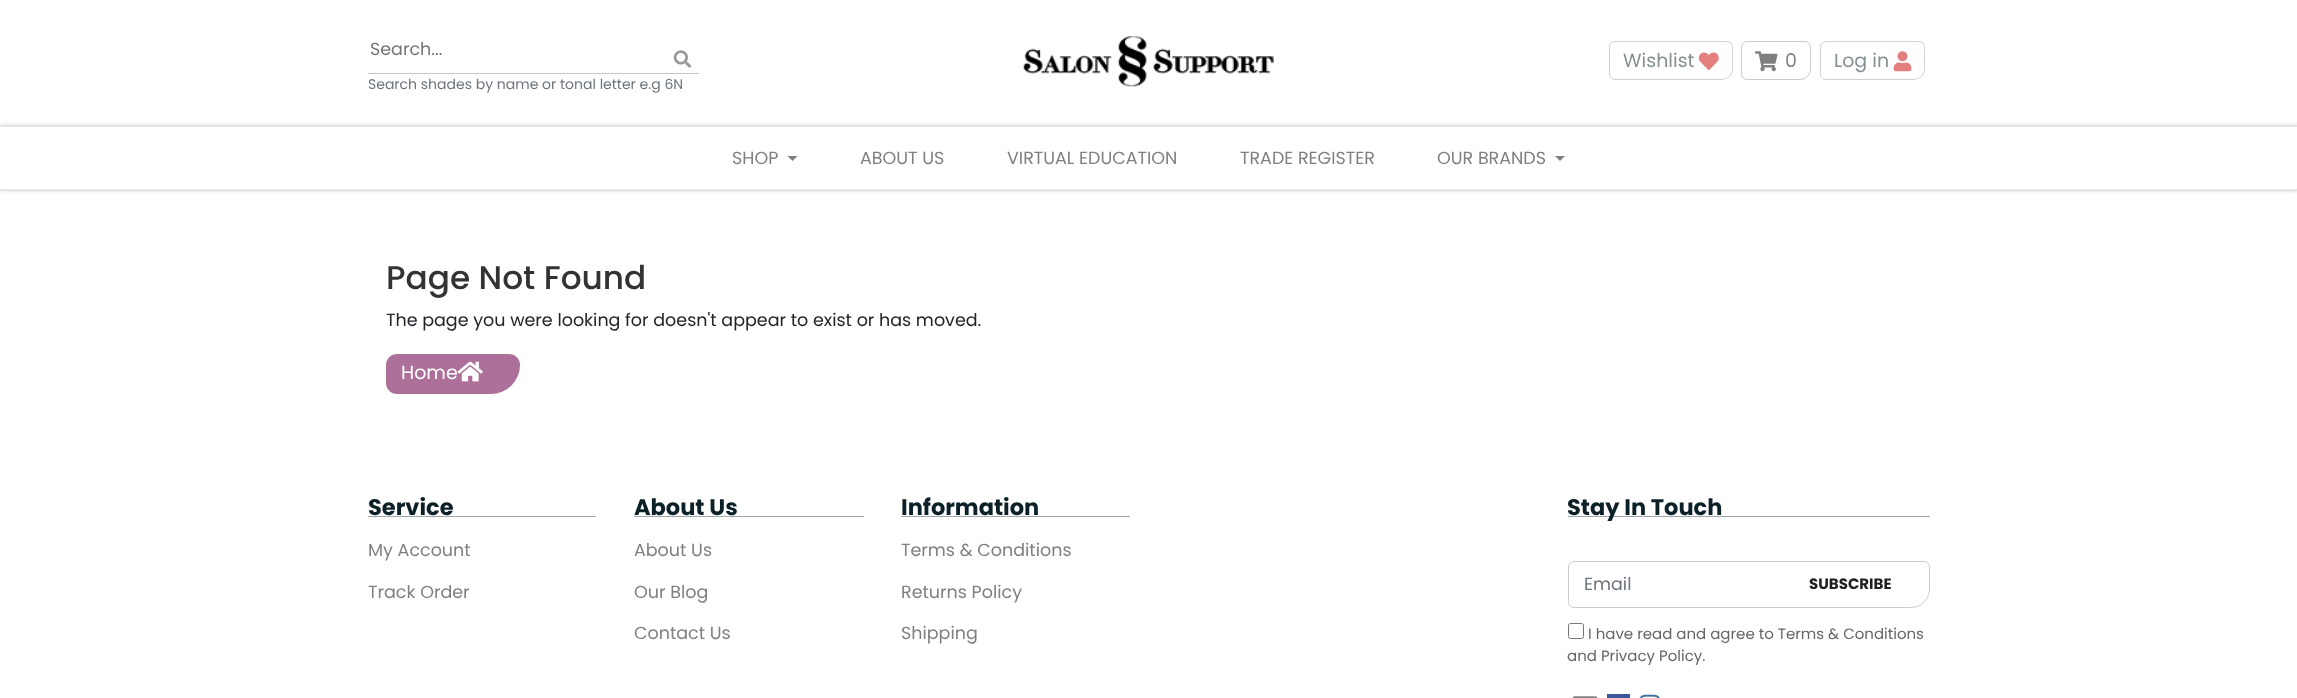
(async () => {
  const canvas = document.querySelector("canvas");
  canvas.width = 2297;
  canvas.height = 698;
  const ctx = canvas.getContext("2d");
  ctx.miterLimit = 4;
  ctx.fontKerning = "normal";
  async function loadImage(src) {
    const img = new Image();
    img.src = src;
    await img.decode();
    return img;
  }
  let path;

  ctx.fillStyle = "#ffffff";
  ctx.fillRect(0, 0, 2297, 698);
  ctx.fillStyle = "#c7c7c7";
  ctx.fillRect(368, 73, 331, 1);
  ctx.drawImage(await loadImage("img/1.png"), 673, 50, 19, 18);
  ctx.drawImage(await loadImage("img/2.png"), 1023, 36, 251, 51);
  ctx.beginPath();
  ctx.roundRect(1609.5, 41.5, 123, 38, [5.5, 5.5, 10.5, 5.5]);
  ctx.strokeStyle = "#ced2d4";
  ctx.stroke();
  ctx.drawImage(await loadImage("img/3.png"), 1698, 52, 21, 18);
  ctx.beginPath();
  ctx.roundRect(1741.5, 41.5, 69, 38, [5.5, 5.5, 10.5, 5.5]);
  ctx.strokeStyle = "#cccccc";
  ctx.stroke();
  ctx.drawImage(await loadImage("img/4.png"), 1755, 51, 23, 21);
  ctx.beginPath();
  ctx.roundRect(1820.5, 41.5, 104, 38, [5.5, 5.5, 10.5, 5.5]);
  ctx.strokeStyle = "#ced2d4";
  ctx.stroke();
  ctx.drawImage(await loadImage("img/5.png"), 1893, 51, 19, 21);
  ctx.save();
  path = new Path2D("M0 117H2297V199H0ZM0 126H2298V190H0Z");
  ctx.clip(path, "evenodd");
  ctx.fillStyle = "rgba(0, 0, 0, 0.25)";
  ctx.filter = "blur(2.5px)";
  ctx.beginPath();
  ctx.rect(0, 126, 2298, 64);
  ctx.fill();
  ctx.filter = "none";
  ctx.restore();
  ctx.fillStyle = "#e4e4e4";
  ctx.fillRect(0, 126, 2297, 1);
  ctx.fillStyle = "#e6e6e6";
  ctx.fillRect(0, 189, 2297, 1);
  ctx.fillStyle = "#808080";
  path = new Path2D("M787.5 156H797.5L792.5 161Z");
  ctx.fill(path);
  path = new Path2D("M1555 156H1565L1560 161Z");
  ctx.fill(path);
  ctx.fillStyle = "#ad709a";
  ctx.beginPath();
  ctx.roundRect(386, 354, 134, 40, [11, 11, 29, 11]);
  ctx.fill();
  ctx.drawImage(await loadImage("img/6.png"), 457, 361, 26, 21);
  for (const [x, y, w, h, color] of [
    [368, 516, 228, 1, "#9ea6a9"],
    [634, 516, 230, 1, "#9ea6a9"],
    [901, 516, 229, 1, "#9ea6a9"],
  ]) {
    ctx.fillStyle = color;
    ctx.fillRect(x, y, w, h);
  }
  ctx.beginPath();
  ctx.roundRect(1568.5, 561.5, 361, 46, [5.5, 5.5, 18.5, 5.5]);
  ctx.strokeStyle = "#cccccc";
  ctx.stroke();
  ctx.fillStyle = "#ffffff";
  ctx.beginPath();
  ctx.roundRect(1569, 563, 226, 43, [5, 0, 0, 5]);
  ctx.fill();
  ctx.beginPath();
  ctx.roundRect(1568.5, 623.5, 15, 15, 2);
  ctx.strokeStyle = "#767676";
  ctx.stroke();
  ctx.drawImage(await loadImage("img/7.png"), 1572, 696, 26, 2);
  ctx.fillStyle = "#3b5998";
  ctx.fillRect(1607, 694, 23, 4);
  ctx.drawImage(await loadImage("img/8.png"), 1639, 694, 21, 4);
  ctx.font = "17.5px Poppins";
  ctx.fillStyle = "#757575";
  ctx.fillText("Search...", 370, 55);
  ctx.font = "14px Poppins";
  ctx.fillStyle = "#6c757d";
  ctx.fillText("Search shades by name or tonal letter e.g 6N", 368, 89);
  ctx.font = "19px Poppins";
  ctx.fillStyle = "#869093";
  ctx.fillText("Wishlist", 1623, 67);
  ctx.fillStyle = "#808080";
  ctx.fillText("0", 1785, 67);
  ctx.fillStyle = "#869093";
  ctx.fillText("Log in", 1834, 67);
  ctx.font = "17.5px Poppins";
  ctx.fillStyle = "#808080";
  for (const [text, x, y] of [
    ["SHOP", 732, 164],
    ["ABOUT US", 860, 164],
    ["VIRTUAL EDUCATION", 1007, 164],
    ["TRADE REGISTER", 1240, 164],
    ["OUR BRANDS", 1437, 164],
  ]) {
    ctx.fillText(text, x, y);
  }
  ctx.font = "500 32.75px Poppins";
  ctx.fillStyle = "#333333";
  ctx.fillText("Page Not Found", 386, 289);
  ctx.font = "17.5px Poppins";
  ctx.fillStyle = "#212529";
  ctx.fillText("The page you were looking for doesn't appear to exist or has moved.", 386, 326);
  ctx.font = "19px Poppins";
  ctx.fillStyle = "#ffffff";
  ctx.fillText("Home", 401, 379);
  ctx.font = "bold 22.5px Poppins";
  ctx.fillStyle = "#0c2027";
  ctx.fillText("Service", 368, 515);
  ctx.font = "17.5px Poppins";
  ctx.fillStyle = "#808080";
  ctx.fillText("My Account", 368, 556);
  ctx.fillText("Track Order", 368, 598);
  ctx.font = "bold 22.5px Poppins";
  ctx.fillStyle = "#0c2027";
  ctx.fillText("About Us", 634, 515);
  ctx.font = "17.5px Poppins";
  ctx.fillStyle = "#808080";
  for (const [text, x, y] of [
    ["About Us", 634, 556],
    ["Our Blog", 634, 598],
    ["Contact Us", 634, 639],
  ]) {
    ctx.fillText(text, x, y);
  }
  ctx.font = "bold 22.5px Poppins";
  ctx.fillStyle = "#0c2027";
  ctx.fillText("Information", 901, 515);
  ctx.font = "17.5px Poppins";
  ctx.fillStyle = "#808080";
  for (const [text, x, y] of [
    ["Terms & Conditions", 901, 556],
    ["Returns Policy", 901, 598],
    ["Shipping", 901, 639],
  ]) {
    ctx.fillText(text, x, y);
  }
  ctx.font = "bold 22.5px Poppins";
  ctx.fillStyle = "#0c2027";
  ctx.fillText("Stay In Touch", 1567, 515);
  ctx.fillStyle = "rgba(12, 32, 39, 0.4)";
  ctx.fillRect(1568, 516, 362, 1);
  ctx.font = "17.5px Poppins";
  ctx.fillStyle = "#6c757d";
  ctx.fillText("Email", 1584, 590);
  ctx.font = "bold 15px Poppins";
  ctx.fillStyle = "#202020";
  ctx.fillText("SUBSCRIBE", 1809, 589);
  ctx.font = "15px Poppins";
  ctx.fillStyle = "#666666";
  ctx.fillText("I have read and agree to Terms & Conditions", 1588, 639);
  ctx.fillText("and Privacy Policy.", 1567, 661);
})();
